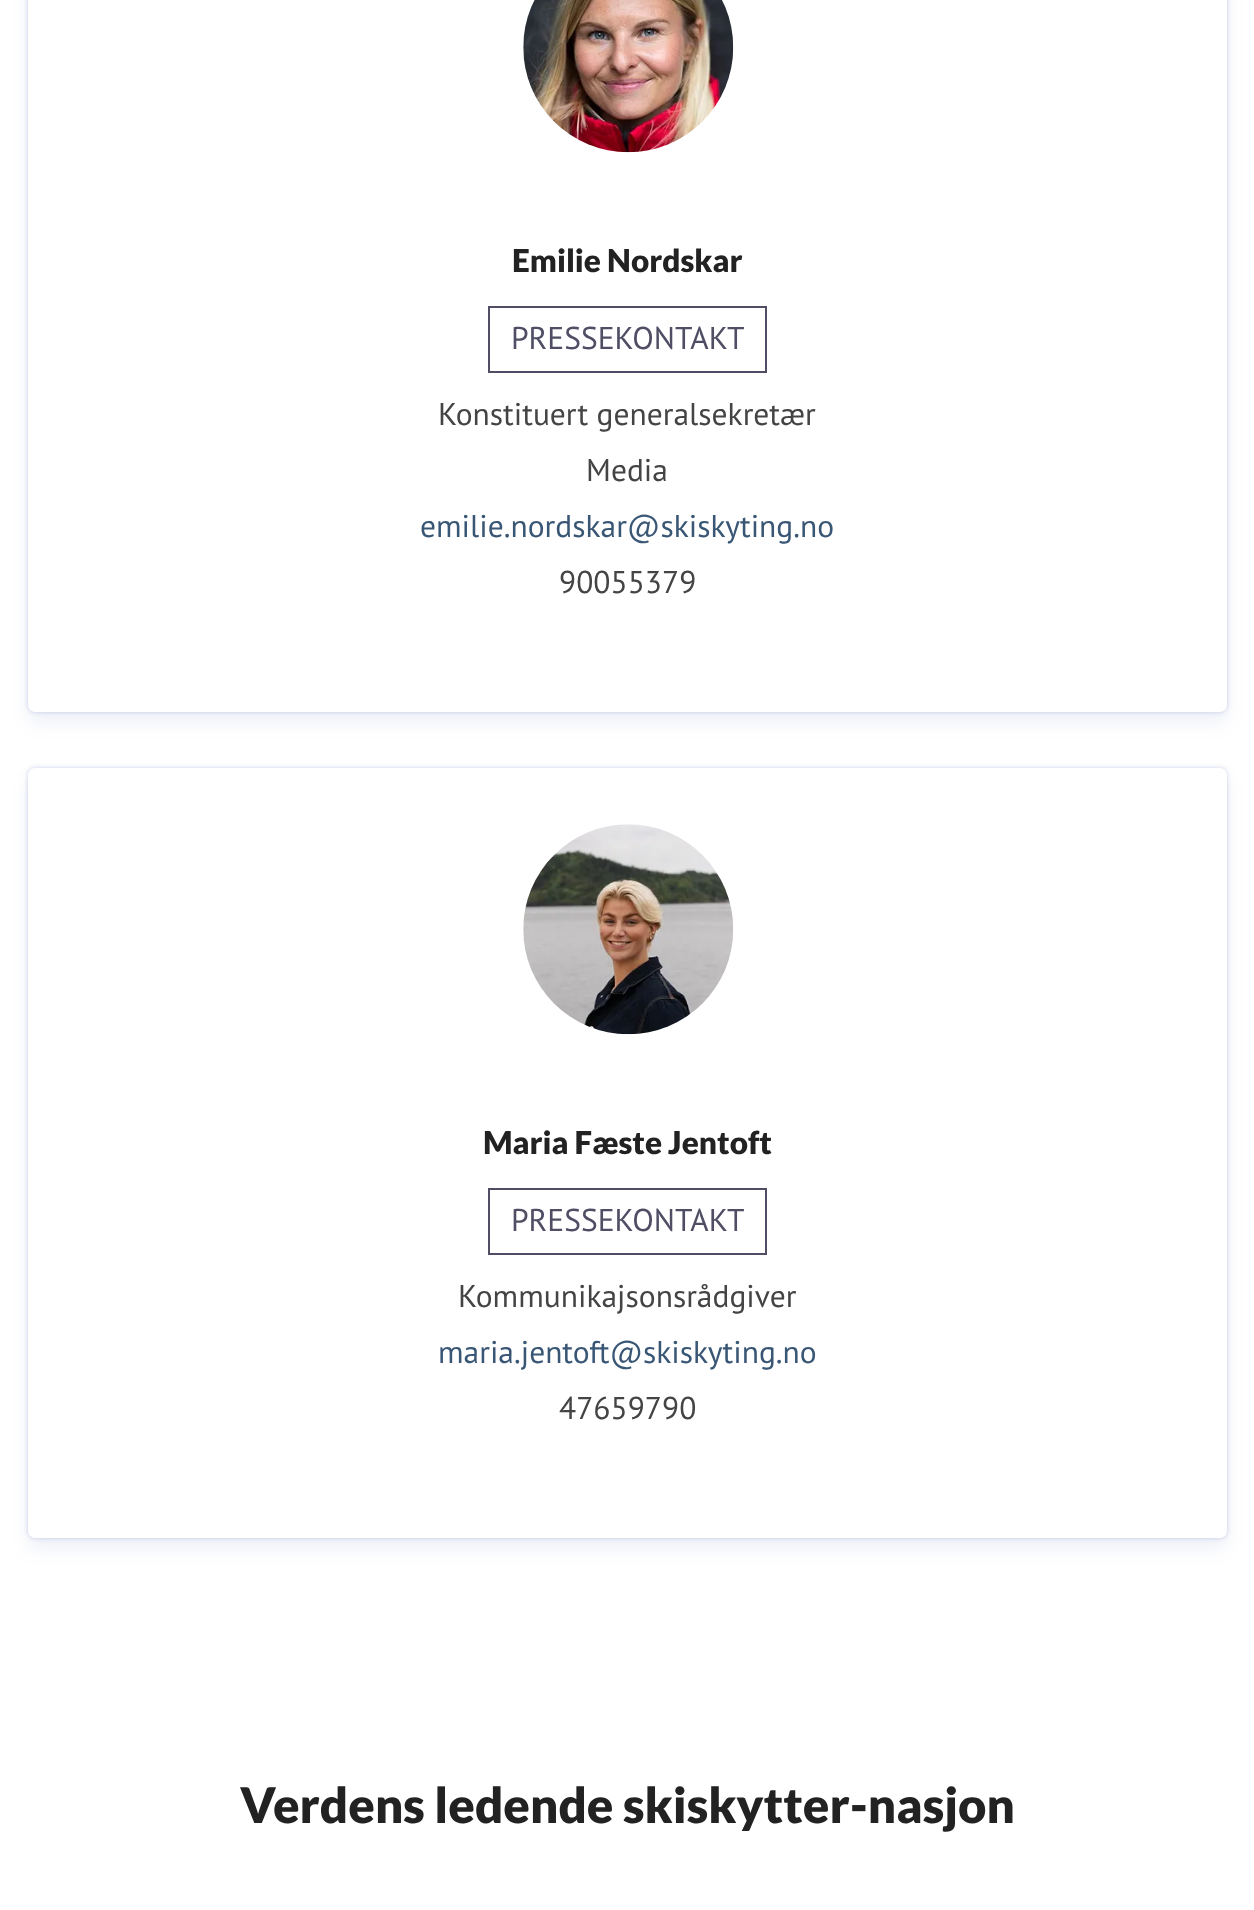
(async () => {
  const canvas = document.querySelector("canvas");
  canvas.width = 1254;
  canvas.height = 1910;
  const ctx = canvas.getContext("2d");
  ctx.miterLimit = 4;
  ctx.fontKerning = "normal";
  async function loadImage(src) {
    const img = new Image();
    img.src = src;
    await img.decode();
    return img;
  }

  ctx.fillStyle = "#ffffff";
  ctx.fillRect(0, 0, 1254, 1910);
  ctx.fillStyle = "rgba(49, 73, 164, 0.14)";
  ctx.filter = "blur(2px)";
  ctx.beginPath();
  ctx.roundRect(28, -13, 1199, 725, 7);
  ctx.fill();
  ctx.filter = "none";
  ctx.fillStyle = "rgba(49, 73, 164, 0.1)";
  ctx.filter = "blur(2.5px)";
  ctx.beginPath();
  ctx.roundRect(28, -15, 1199, 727, 7);
  ctx.fill();
  ctx.filter = "none";
  ctx.fillStyle = "rgba(49, 73, 164, 0.08)";
  ctx.filter = "blur(9px)";
  ctx.beginPath();
  ctx.roundRect(28, -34, 1199, 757, 7);
  ctx.fill();
  ctx.filter = "none";
  ctx.fillStyle = "#ffffff";
  ctx.beginPath();
  ctx.roundRect(28, -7, 1199, 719, 7);
  ctx.fill();
  ctx.drawImage(await loadImage("img/1.png"), 523, 0, 211, 153);
  ctx.strokeStyle = "#4f4e65";
  ctx.lineWidth = 2;
  ctx.strokeRect(489, 307, 277, 65);
  ctx.fillStyle = "rgba(49, 73, 164, 0.14)";
  ctx.filter = "blur(2px)";
  ctx.beginPath();
  ctx.roundRect(28, 768, 1199, 770, 7);
  ctx.fill();
  ctx.filter = "none";
  ctx.fillStyle = "rgba(49, 73, 164, 0.1)";
  ctx.filter = "blur(2.5px)";
  ctx.beginPath();
  ctx.roundRect(28, 768, 1199, 770, 7);
  ctx.fill();
  ctx.filter = "none";
  ctx.fillStyle = "rgba(49, 73, 164, 0.08)";
  ctx.filter = "blur(9px)";
  ctx.beginPath();
  ctx.roundRect(28, 779, 1199, 770, 7);
  ctx.fill();
  ctx.filter = "none";
  ctx.fillStyle = "#ffffff";
  ctx.beginPath();
  ctx.roundRect(28, 768, 1199, 770, 7);
  ctx.fill();
  ctx.drawImage(await loadImage("img/2.png"), 523, 824, 211, 211);
  ctx.strokeRect(489, 1189, 277, 65);
  ctx.font = "900 31.5px Lato";
  ctx.fillStyle = "#222222";
  ctx.fillText("Emilie Nordskar", 512, 272);
  ctx.font = "31.5px PT Sans";
  ctx.fillStyle = "#4f4e65";
  ctx.fillText("PRESSEKONTAKT", 511, 349);
  ctx.fillStyle = "#444444";
  ctx.fillText("Konstituert generalsekretær", 438, 425);
  ctx.fillText("Media", 586, 481);
  ctx.fillStyle = "#395775";
  ctx.fillText("emilie.nordskar@skiskyting.no", 420, 537);
  ctx.fillStyle = "#444444";
  ctx.fillText("90055379", 559, 593);
  ctx.font = "900 31.5px Lato";
  ctx.fillStyle = "#222222";
  ctx.fillText("Maria Fæste Jentoft", 483, 1154);
  ctx.font = "31.5px PT Sans";
  ctx.fillStyle = "#4f4e65";
  ctx.fillText("PRESSEKONTAKT", 511, 1231);
  ctx.fillStyle = "#444444";
  ctx.fillText("Kommunikajsonsrådgiver", 458, 1307);
  ctx.fillStyle = "#395775";
  ctx.fillText("maria.jentoft@skiskyting.no", 438, 1363);
  ctx.fillStyle = "#444444";
  ctx.fillText("47659790", 559, 1419);
  ctx.font = "900 49px Lato";
  ctx.fillStyle = "#222222";
  ctx.fillText("Verdens ledende skiskytter-nasjon", 240, 1823);
})();
